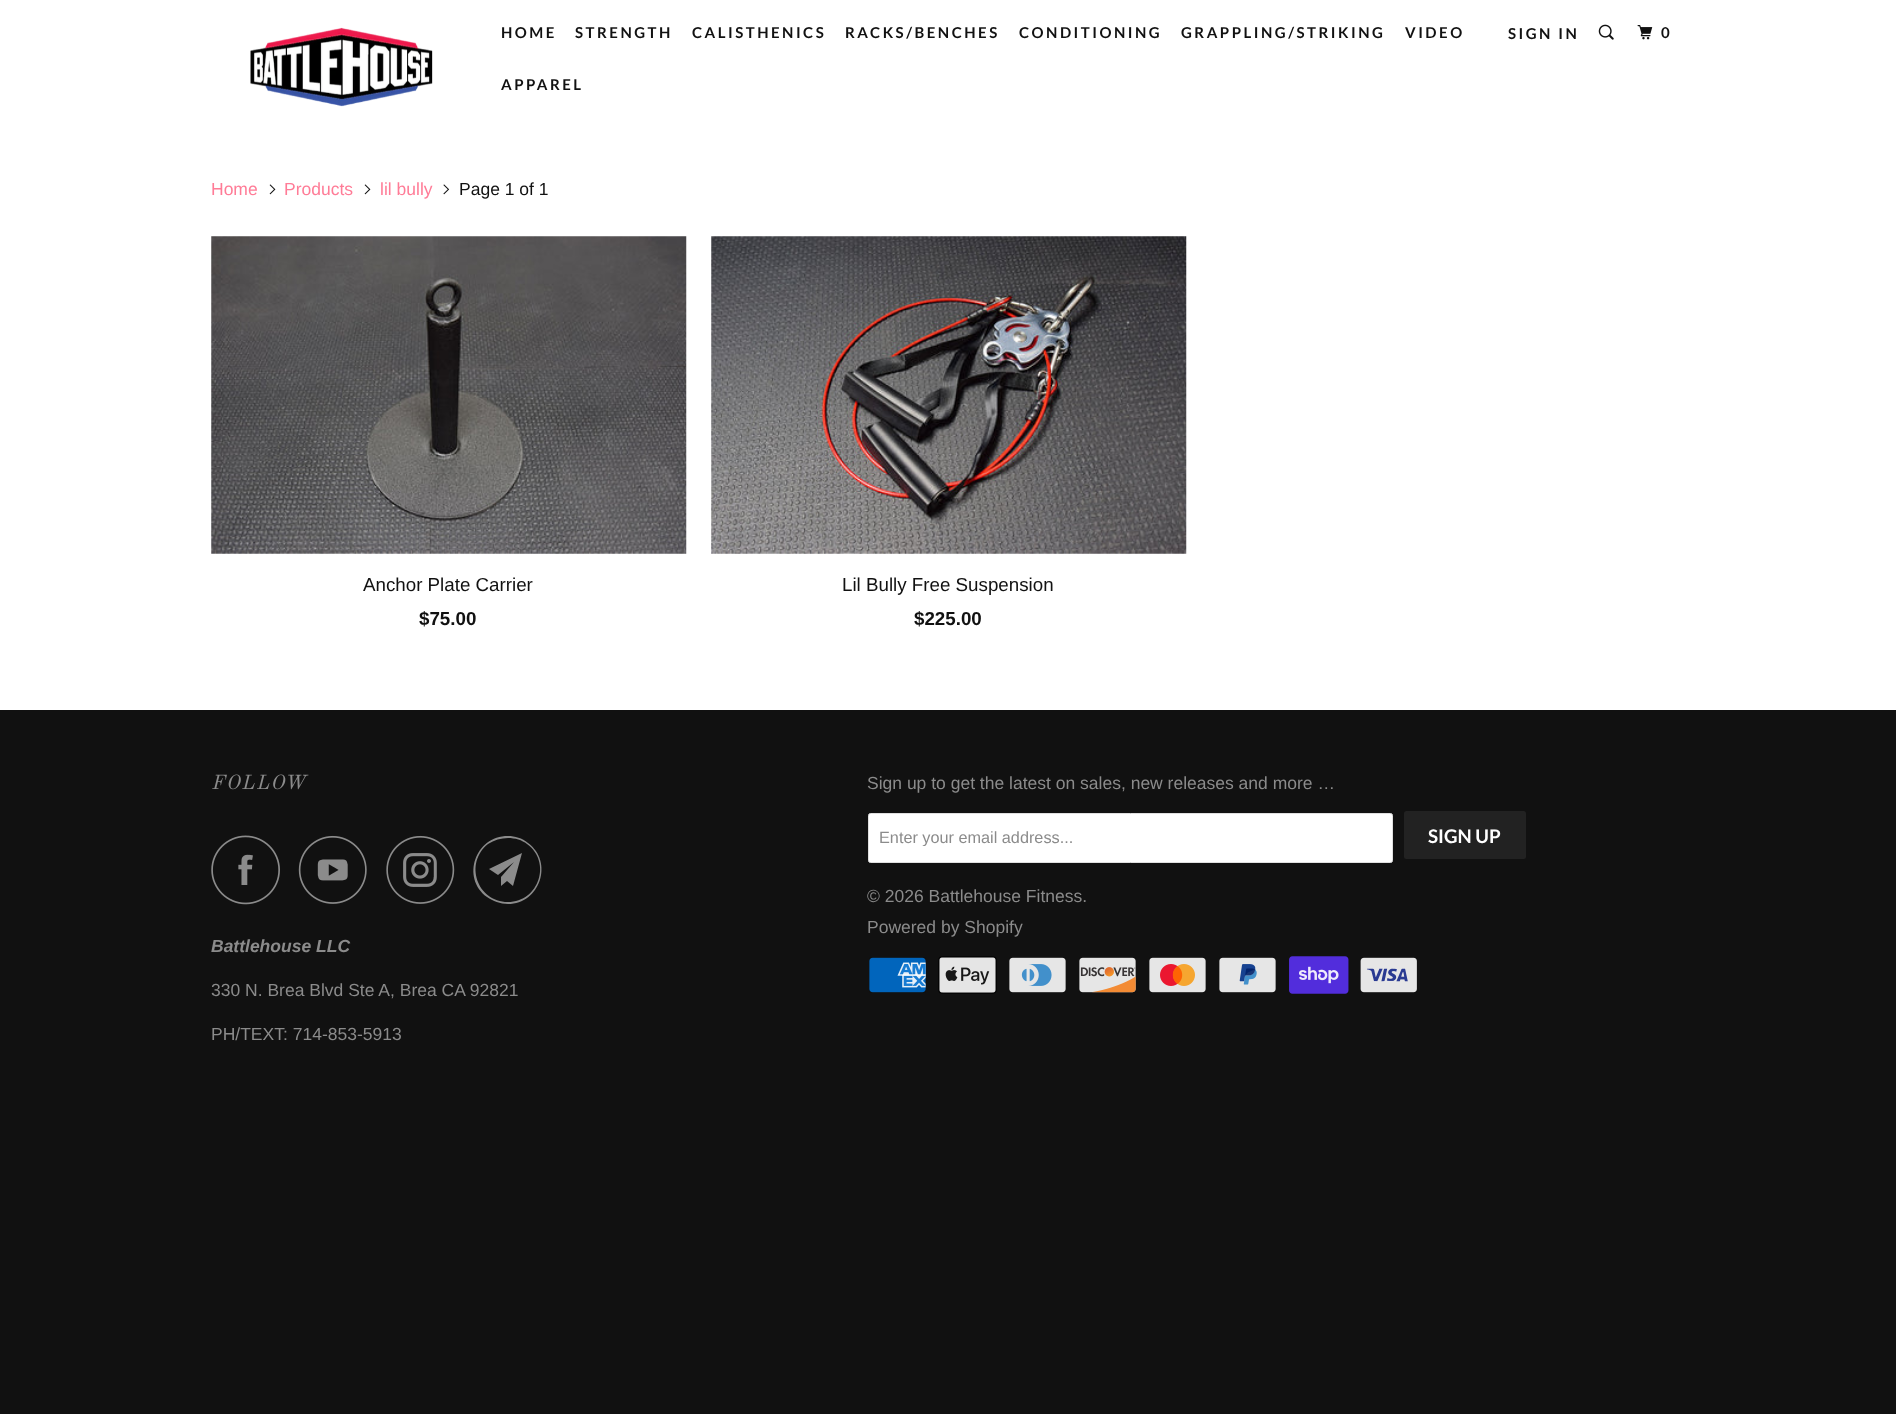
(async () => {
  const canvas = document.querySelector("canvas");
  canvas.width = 1896;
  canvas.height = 1414;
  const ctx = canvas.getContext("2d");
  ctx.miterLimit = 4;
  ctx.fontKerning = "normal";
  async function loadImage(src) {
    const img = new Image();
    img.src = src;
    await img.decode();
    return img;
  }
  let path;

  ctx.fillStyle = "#111111";
  ctx.fillRect(0, 0, 1896, 1414);
  ctx.fillStyle = "#ffffff";
  ctx.fillRect(0, 0, 1896, 710);
  ctx.drawImage(await loadImage("img/1.png"), 250, 27, 183, 80);
  ctx.drawImage(await loadImage("img/2.png"), 1598, 24, 16, 16);
  ctx.drawImage(await loadImage("img/3.png"), 1637, 25, 16, 15);
  ctx.drawImage(await loadImage("img/4.png"), 269, 184, 7, 11);
  ctx.drawImage(await loadImage("img/4.png"), 364, 184, 7, 11);
  ctx.drawImage(await loadImage("img/5.png"), 443, 184, 7, 11);
  ctx.drawImage(await loadImage("img/6.png"), 211, 236, 476, 318);
  ctx.drawImage(await loadImage("img/7.png"), 711, 236, 476, 318);
  ctx.drawImage(await loadImage("img/8.png"), 211, 835, 69, 70);
  ctx.drawImage(await loadImage("img/9.png"), 298, 835, 69, 69);
  ctx.drawImage(await loadImage("img/10.png"), 386, 835, 69, 69);
  ctx.fillStyle = "#8b8b8b";
  path = new Path2D("M513 886L507 881L501 886V877L514 862L498 875L489 869L522 853ZM508 838C501 838 494 840 488 844C464 863 477 902 508 902C539 902 552 862 527 844C522 840 515 838 508 838ZM508 904C500 904 493 901 487 897C461 878 475 836 508 836C515 836 522 838 528 843C554 862 540 904 508 904Z");
  ctx.fill(path);
  ctx.fillStyle = "#ffffff";
  ctx.beginPath();
  ctx.roundRect(868.5, 813.5, 524, 49, 2);
  ctx.fill();
  ctx.strokeStyle = "#dfdfdf";
  ctx.stroke();
  ctx.fillStyle = "#222222";
  ctx.beginPath();
  ctx.roundRect(1404, 811, 122, 48, 2.5);
  ctx.fill();
  ctx.drawImage(await loadImage("img/11.png"), 869, 957, 57, 36);
  ctx.drawImage(await loadImage("img/12.png"), 938, 956, 59, 38);
  ctx.drawImage(await loadImage("img/13.png"), 1009, 957, 57, 36);
  ctx.drawImage(await loadImage("img/14.png"), 1079, 957, 57, 36);
  ctx.drawImage(await loadImage("img/15.png"), 1149, 957, 57, 36);
  ctx.drawImage(await loadImage("img/16.png"), 1219, 957, 57, 36);
  ctx.drawImage(await loadImage("img/17.png"), 1289, 956, 60, 38);
  ctx.drawImage(await loadImage("img/18.png"), 1360, 957, 57, 36);
  ctx.letterSpacing = "2.5px";
  ctx.font = "bold 15px Lato";
  ctx.fillStyle = "#111111";
  for (const [text, x, y] of [
    ["HOME", 501, 38],
    ["STRENGTH", 575, 38],
    ["CALISTHENICS", 692, 38],
    ["RACKS/BENCHES", 845, 38],
    ["CONDITIONING", 1019, 38],
    ["GRAPPLING/STRIKING", 1181, 38],
    ["VIDEO", 1405, 38],
    ["APPAREL", 501, 90],
    ["SIGN IN", 1508, 39],
    ["0", 1661, 38],
  ]) {
    ctx.fillText(text, x, y);
  }
  ctx.letterSpacing = "0px";
  ctx.font = "17.5px Liberation Sans";
  ctx.fillStyle = "#ff7c97";
  for (const [text, x, y] of [
    ["Home", 211, 195],
    ["Products", 284, 195],
    ["lil bully", 380, 195],
  ]) {
    ctx.fillText(text, x, y);
  }
  ctx.fillStyle = "#111111";
  ctx.fillText("Page 1 of 1", 459, 195);
  ctx.font = "18.75px Liberation Sans";
  ctx.fillText("Anchor Plate Carrier", 363, 591);
  ctx.font = "bold 18.75px Liberation Sans";
  ctx.fillText("$75.00", 419, 625);
  ctx.font = "18.75px Liberation Sans";
  ctx.fillText("Lil Bully Free Suspension", 842, 591);
  ctx.font = "bold 18.75px Liberation Sans";
  ctx.fillText("$225.00", 914, 625);
  ctx.letterSpacing = "1.25px";
  ctx.font = "italic 20px Old Standard TT";
  ctx.fillStyle = "#8b8b8b";
  ctx.fillText("FOLLOW", 211, 789);
  ctx.letterSpacing = "0px";
  ctx.font = "italic bold 17.5px Liberation Sans";
  ctx.fillText("Battlehouse LLC", 211, 952);
  ctx.font = "17.5px Liberation Sans";
  for (const [text, x, y] of [
    ["330 N. Brea Blvd Ste A, Brea CA 92821", 211, 996],
    ["PH/TEXT: 714-853-5913", 211, 1040],
    ["Sign up to get the latest on sales, new releases and more …", 867, 789],
  ]) {
    ctx.fillText(text, x, y);
  }
  ctx.save();
  ctx.beginPath();
  ctx.rect(880, 828, 500, 18);
  ctx.clip();
  ctx.font = "16.25px Liberation Sans";
  ctx.fillText("Enter your email address...", 879, 843);
  ctx.restore();
  ctx.font = "bold 18.75px Lato";
  ctx.fillStyle = "#ffffff";
  ctx.fillText("SIGN UP", 1428, 843);
  ctx.font = "17.5px Liberation Sans";
  ctx.fillStyle = "#8b8b8b";
  ctx.fillText("© 2026 Battlehouse Fitness.", 867, 902);
  ctx.fillText("Powered by Shopify", 867, 933);
})();
